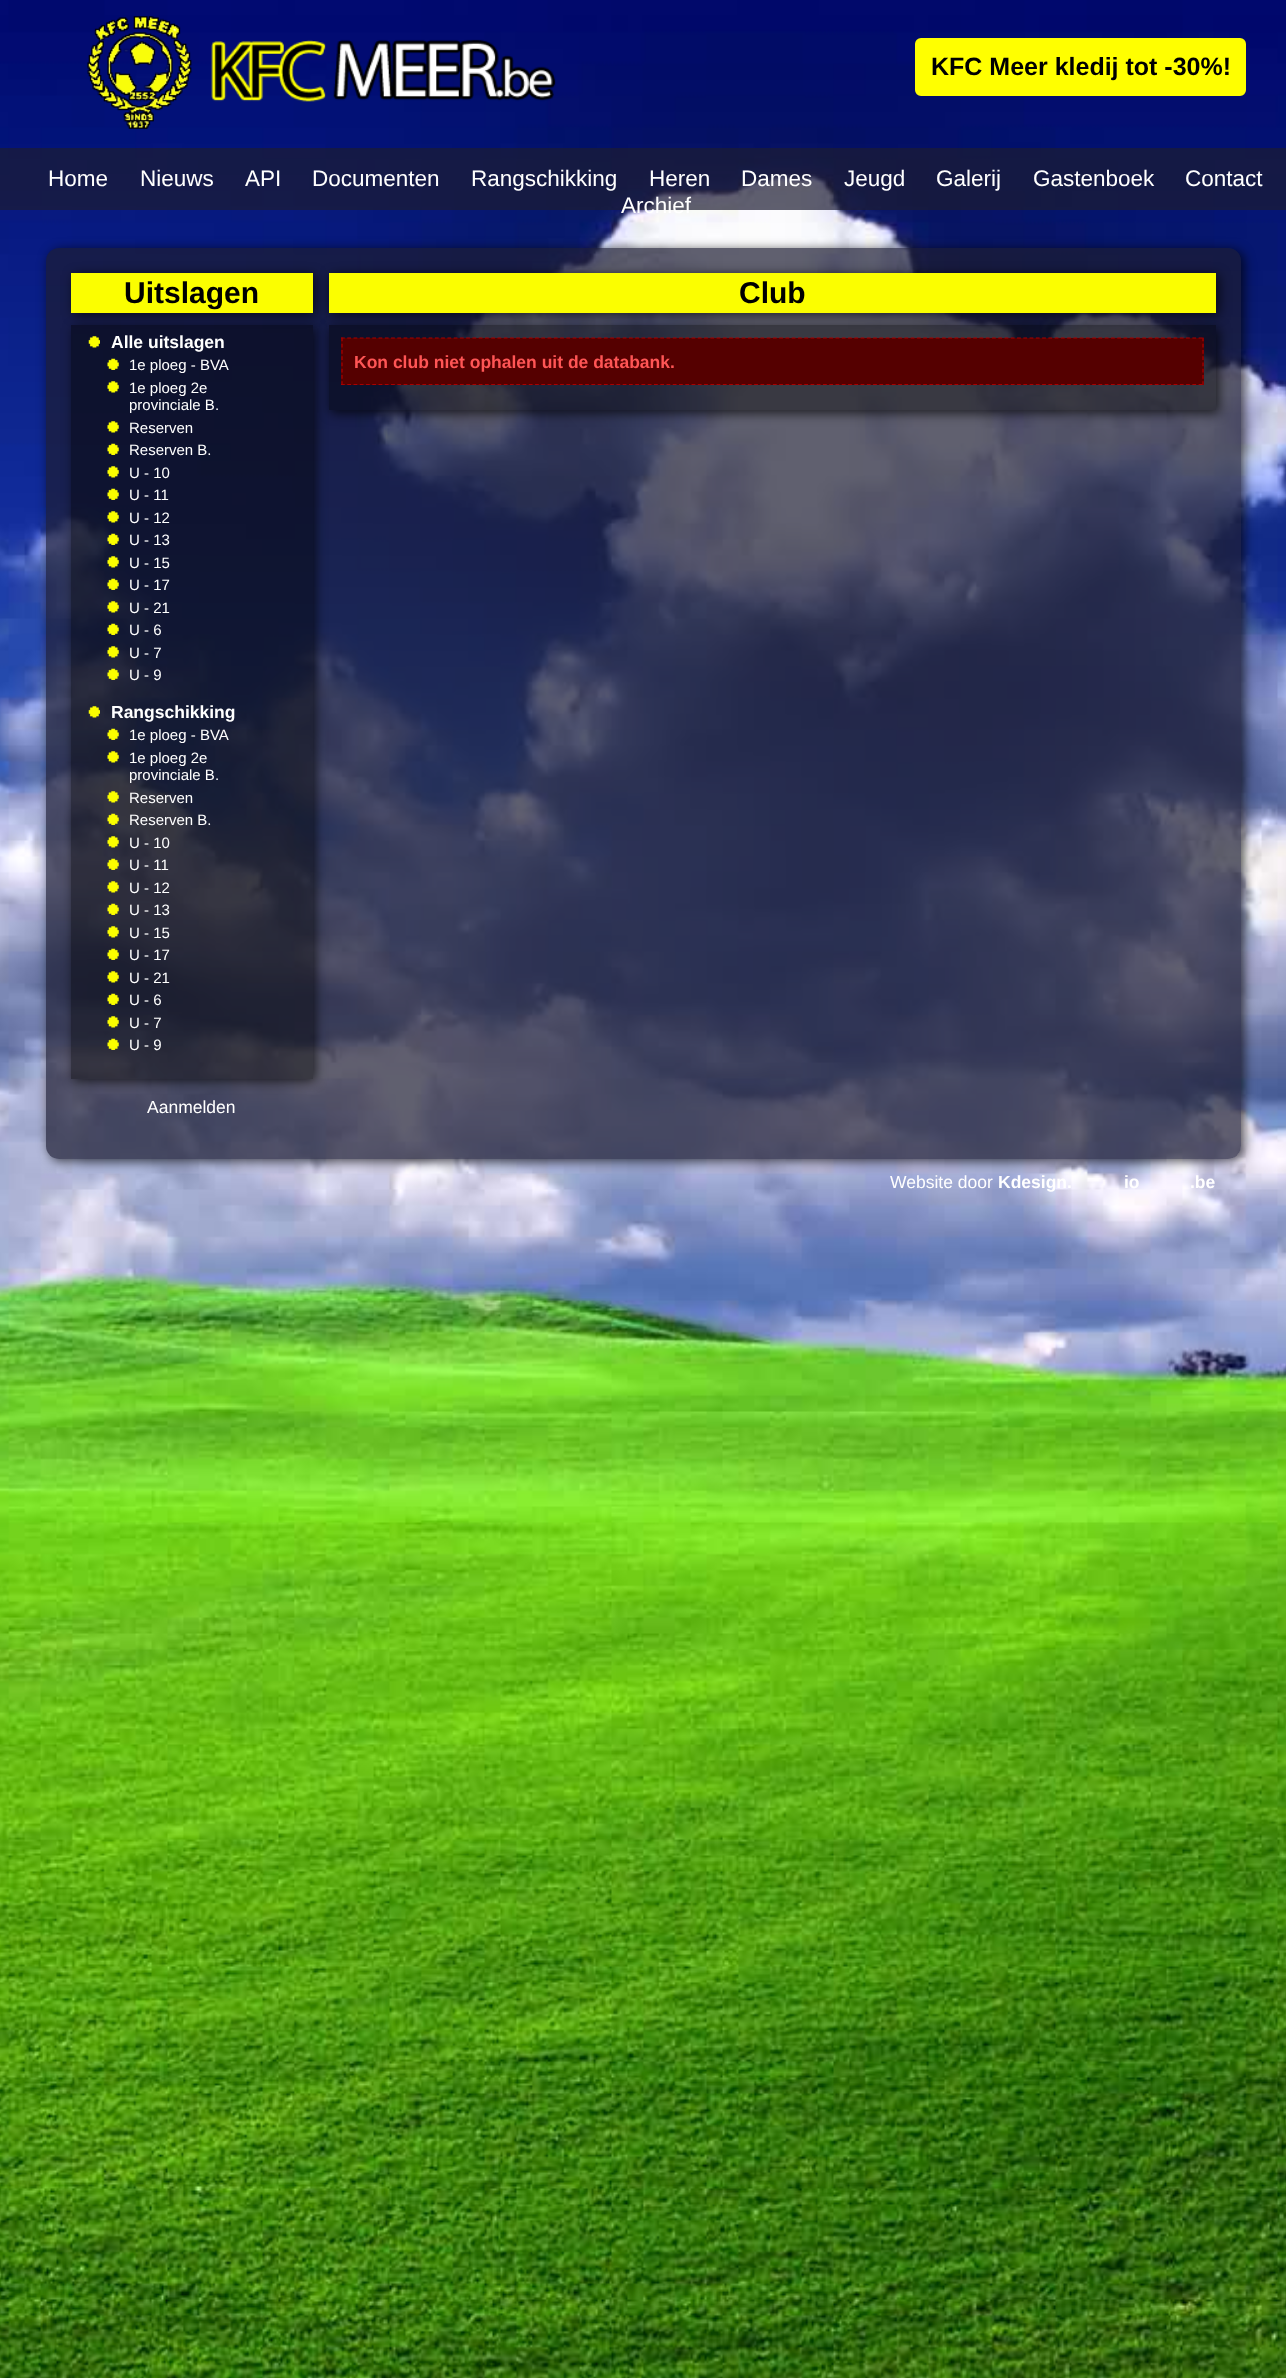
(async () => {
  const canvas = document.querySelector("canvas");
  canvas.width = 1286;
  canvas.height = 2378;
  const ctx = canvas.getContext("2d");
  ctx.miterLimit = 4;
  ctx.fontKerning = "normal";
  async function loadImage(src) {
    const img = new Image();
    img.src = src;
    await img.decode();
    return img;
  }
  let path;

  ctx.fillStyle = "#ffffff";
  ctx.fillRect(0, 0, 1286, 2378);
  ctx.drawImage(await loadImage("img/1.png"), 0, 0, 1286, 2378);
  ctx.drawImage(await loadImage("img/2.png"), 87, 16, 469, 113);
  ctx.fillStyle = "#ffff00";
  ctx.beginPath();
  ctx.roundRect(916.5, 39.5, 328, 55, 4.5);
  ctx.fill();
  ctx.strokeStyle = "#ffff00";
  ctx.lineWidth = 3;
  ctx.stroke();
  ctx.fillStyle = "rgba(29, 29, 50, 0.7)";
  ctx.fillRect(0, 148, 1286, 62);
  ctx.save();
  path = new Path2D("M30 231H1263V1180H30ZM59 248H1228C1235 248 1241 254 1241 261V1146C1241 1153 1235 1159 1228 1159H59C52 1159 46 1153 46 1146V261C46 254 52 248 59 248Z");
  ctx.clip(path, "evenodd");
  ctx.fillStyle = "rgba(0, 0, 0, 0.7)";
  ctx.filter = "blur(6px)";
  ctx.beginPath();
  ctx.roundRect(49, 250, 1195, 911, 13);
  ctx.fill();
  ctx.filter = "none";
  ctx.restore();
  ctx.beginPath();
  ctx.roundRect(46, 248, 1195, 911, 13);
  ctx.fill();
  ctx.fillStyle = "rgba(0, 0, 0, 0.7)";
  ctx.filter = "blur(6px)";
  ctx.beginPath();
  ctx.rect(74, 275, 241, 40);
  ctx.fill();
  ctx.filter = "none";
  ctx.fillStyle = "#fbfe00";
  ctx.fillRect(71, 273, 242, 40);
  ctx.save();
  path = new Path2D("M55 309H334V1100H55ZM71 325H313V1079H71Z");
  ctx.clip(path, "evenodd");
  ctx.fillStyle = "rgba(0, 0, 0, 0.7)";
  ctx.filter = "blur(6px)";
  ctx.beginPath();
  ctx.rect(74, 328, 241, 753);
  ctx.fill();
  ctx.filter = "none";
  ctx.restore();
  ctx.fillStyle = "rgba(0, 0, 0, 0.4)";
  ctx.fillRect(71, 325, 242, 754);
  ctx.drawImage(await loadImage("img/3.png"), 88, 336, 12, 12);
  ctx.drawImage(await loadImage("img/4.png"), 107, 358, 12, 12);
  ctx.drawImage(await loadImage("img/5.png"), 107, 381, 12, 12);
  ctx.drawImage(await loadImage("img/6.png"), 107, 421, 12, 12);
  ctx.drawImage(await loadImage("img/7.png"), 107, 443, 12, 12);
  ctx.drawImage(await loadImage("img/8.png"), 107, 466, 12, 12);
  ctx.drawImage(await loadImage("img/9.png"), 107, 488, 12, 12);
  ctx.drawImage(await loadImage("img/10.png"), 107, 511, 12, 12);
  ctx.drawImage(await loadImage("img/11.png"), 107, 533, 12, 12);
  ctx.drawImage(await loadImage("img/12.png"), 107, 556, 12, 12);
  ctx.drawImage(await loadImage("img/13.png"), 107, 578, 12, 12);
  ctx.drawImage(await loadImage("img/14.png"), 107, 601, 12, 12);
  ctx.drawImage(await loadImage("img/15.png"), 107, 623, 12, 12);
  ctx.drawImage(await loadImage("img/16.png"), 107, 646, 12, 12);
  ctx.drawImage(await loadImage("img/17.png"), 107, 668, 12, 12);
  ctx.drawImage(await loadImage("img/18.png"), 88, 706, 12, 12);
  ctx.drawImage(await loadImage("img/19.png"), 107, 728, 12, 12);
  ctx.drawImage(await loadImage("img/20.png"), 107, 751, 12, 12);
  ctx.drawImage(await loadImage("img/21.png"), 107, 791, 12, 12);
  ctx.drawImage(await loadImage("img/22.png"), 107, 813, 12, 12);
  ctx.drawImage(await loadImage("img/23.png"), 107, 836, 12, 12);
  ctx.drawImage(await loadImage("img/24.png"), 107, 858, 12, 12);
  ctx.drawImage(await loadImage("img/25.png"), 107, 881, 12, 12);
  ctx.drawImage(await loadImage("img/26.png"), 107, 903, 12, 12);
  ctx.drawImage(await loadImage("img/27.png"), 107, 926, 12, 12);
  ctx.drawImage(await loadImage("img/28.png"), 107, 948, 12, 12);
  ctx.drawImage(await loadImage("img/29.png"), 107, 971, 12, 12);
  ctx.drawImage(await loadImage("img/30.png"), 107, 993, 12, 12);
  ctx.drawImage(await loadImage("img/31.png"), 107, 1016, 12, 12);
  ctx.drawImage(await loadImage("img/32.png"), 107, 1038, 12, 12);
  ctx.fillStyle = "rgba(0, 0, 0, 0.7)";
  ctx.filter = "blur(6px)";
  ctx.beginPath();
  ctx.rect(331, 275, 888, 40);
  ctx.fill();
  ctx.filter = "none";
  ctx.fillStyle = "#fbfe00";
  ctx.fillRect(329, 273, 887, 40);
  ctx.save();
  path = new Path2D("M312 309H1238V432H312ZM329 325H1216V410H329Z");
  ctx.clip(path, "evenodd");
  ctx.fillStyle = "rgba(0, 0, 0, 0.7)";
  ctx.filter = "blur(6px)";
  ctx.beginPath();
  ctx.rect(331, 328, 888, 85);
  ctx.fill();
  ctx.filter = "none";
  ctx.restore();
  ctx.fillStyle = "rgba(0, 0, 0, 0.4)";
  ctx.fillRect(329, 325, 887, 85);
  ctx.fillStyle = "#550000";
  ctx.fillRect(341, 338, 863, 47);
  path = new Path2D("M341 338H1204");
  ctx.strokeStyle = "#aa0000";
  ctx.lineWidth = 1.2;
  ctx.setLineDash([3.75, 2.51]);
  ctx.stroke(path);
  path = new Path2D("M1203 337.5V385");
  ctx.setLineDash([3.75, 2.5]);
  ctx.stroke(path);
  path = new Path2D("M341 384.5H1204");
  ctx.setLineDash([3.75, 2.51]);
  ctx.stroke(path);
  path = new Path2D("M342 337.5V385");
  ctx.setLineDash([3.75, 2.5]);
  ctx.stroke(path);
  ctx.font = "bold 25px Liberation Sans";
  ctx.fillStyle = "#000000";
  ctx.fillText("KFC Meer kledij tot -30%!", 931, 75);
  ctx.font = "22.5px Liberation Sans";
  ctx.fillStyle = "#ffffff";
  for (const [text, x, y] of [
    ["Home", 48, 186],
    ["Nieuws", 140, 186],
    ["API", 245, 186],
    ["Documenten", 312, 186],
    ["Rangschikking", 471, 186],
    ["Heren", 649, 186],
    ["Dames", 741, 186],
    ["Jeugd", 844, 186],
    ["Galerij", 936, 186],
    ["Gastenboek", 1033, 186],
    ["Contact", 1185, 186],
    ["Archief", 621, 213],
  ]) {
    ctx.fillText(text, x, y);
  }
  ctx.font = "bold 30px Liberation Sans";
  ctx.fillStyle = "#000000";
  ctx.fillText("Uitslagen", 124, 303);
  ctx.font = "bold 17.5px Liberation Sans";
  ctx.fillStyle = "#ffffff";
  ctx.fillText("Alle uitslagen", 111, 348);
  ctx.font = "15px Liberation Sans";
  for (const [text, x, y] of [
    ["1e ploeg - BVA", 129, 370],
    ["1e ploeg 2e", 129, 393],
    ["provinciale B.", 129, 410],
    ["Reserven", 129, 433],
    ["Reserven B.", 129, 455],
    ["U - 10", 129, 478],
    ["U - 11", 129, 500],
    ["U - 12", 129, 523],
    ["U - 13", 129, 545],
    ["U - 15", 129, 568],
    ["U - 17", 129, 590],
    ["U - 21", 129, 613],
    ["U - 6", 129, 635],
    ["U - 7", 129, 658],
    ["U - 9", 129, 680],
  ]) {
    ctx.fillText(text, x, y);
  }
  ctx.font = "bold 17.5px Liberation Sans";
  ctx.fillText("Rangschikking", 111, 718);
  ctx.font = "15px Liberation Sans";
  for (const [text, x, y] of [
    ["1e ploeg - BVA", 129, 740],
    ["1e ploeg 2e", 129, 763],
    ["provinciale B.", 129, 780],
    ["Reserven", 129, 803],
    ["Reserven B.", 129, 825],
    ["U - 10", 129, 848],
    ["U - 11", 129, 870],
    ["U - 12", 129, 893],
    ["U - 13", 129, 915],
    ["U - 15", 129, 938],
    ["U - 17", 129, 960],
    ["U - 21", 129, 983],
    ["U - 6", 129, 1005],
    ["U - 7", 129, 1028],
    ["U - 9", 129, 1050],
  ]) {
    ctx.fillText(text, x, y);
  }
  ctx.font = "17.5px Liberation Sans";
  ctx.fillText("Aanmelden", 147, 1113);
  ctx.font = "bold 30px Liberation Sans";
  ctx.fillStyle = "#000000";
  ctx.fillText("Club", 739, 303);
  ctx.font = "bold 17.5px Liberation Sans";
  ctx.fillStyle = "#ff5555";
  ctx.fillText("Kon club niet ophalen uit de databank.", 354, 368);
  ctx.font = "17.5px Liberation Sans";
  ctx.fillStyle = "#ffffff";
  ctx.fillText("Website door", 890, 1188);
  ctx.font = "bold 17.5px Liberation Sans";
  for (const [text, x, y] of [
    ["Kdesign.", 998, 1188],
    ["io", 1124, 1188],
    [".be", 1190, 1188],
  ]) {
    ctx.fillText(text, x, y);
  }
})();
